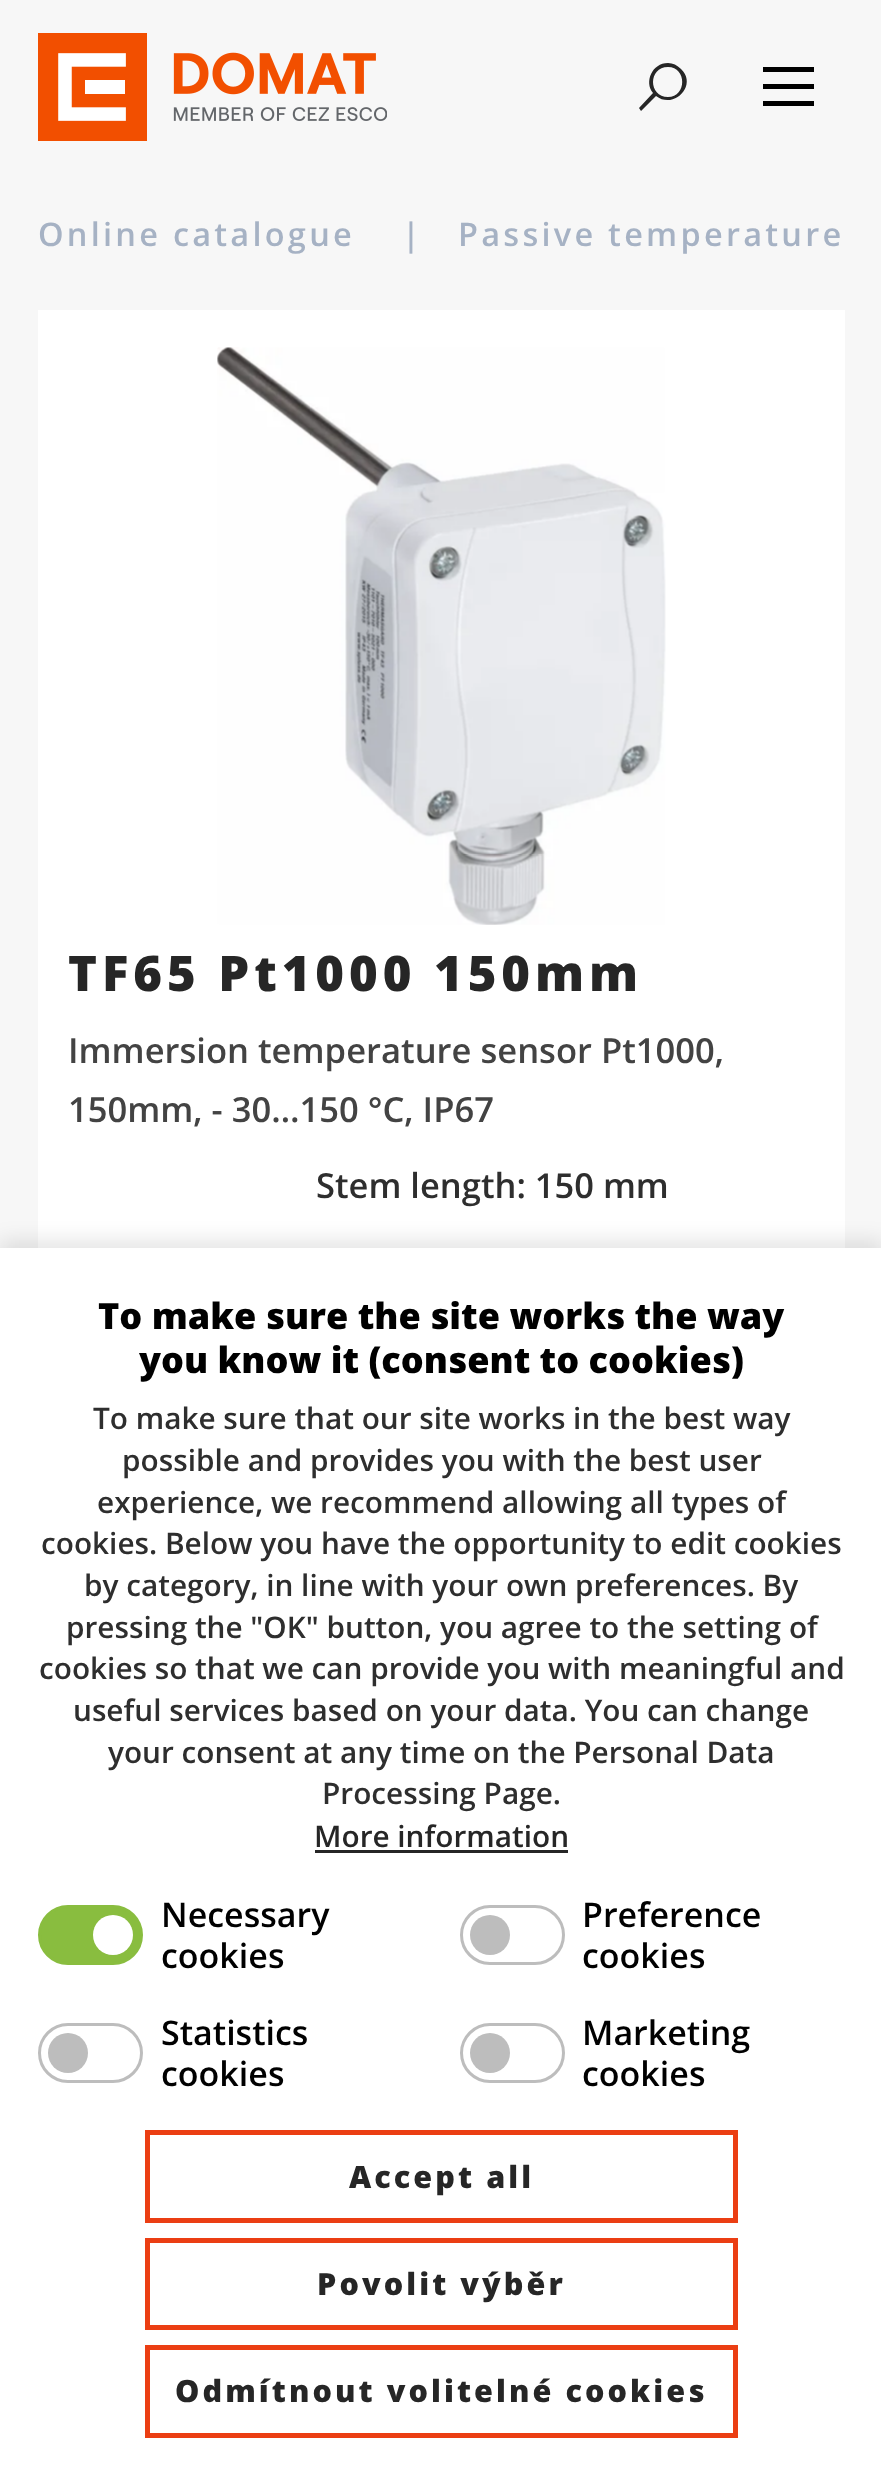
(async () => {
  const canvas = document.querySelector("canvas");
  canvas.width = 881;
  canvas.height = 2484;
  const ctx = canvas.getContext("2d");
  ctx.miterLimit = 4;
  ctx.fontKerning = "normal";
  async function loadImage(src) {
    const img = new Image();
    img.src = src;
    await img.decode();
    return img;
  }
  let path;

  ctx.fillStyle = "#f7f7f7";
  ctx.fillRect(0, 0, 881, 2484);
  ctx.drawImage(await loadImage("img/1.png"), 38, 33, 349, 108);
  ctx.fillStyle = "#262626";
  path = new Path2D("M668 63C652 63 644 82 653 93L639 108L641 111L656 96C674 110 698 85 681 69C677 65 673 63 668 63ZM668 67C687 67 687 97 668 97C648 97 648 67 668 67Z");
  ctx.fill(path);
  ctx.fillStyle = "#000000";
  path = new Path2D("M763 67V72H814V67ZM763 84V89H814V84ZM763 101V106H814V101Z");
  ctx.fill(path);
  ctx.fillStyle = "#ffffff";
  ctx.fillRect(38, 310, 807, 938);
  ctx.drawImage(await loadImage("img/2.png"), 217, 347, 449, 578);
  ctx.fillStyle = "rgba(0, 0, 0, 0.1)";
  ctx.filter = "blur(10px)";
  ctx.beginPath();
  ctx.rect(0, 1240, 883, 1238);
  ctx.fill();
  ctx.filter = "none";
  ctx.fillStyle = "#ffffff";
  ctx.fillRect(0, 1248, 881, 1236);
  ctx.fillStyle = "#262626";
  ctx.fillRect(315, 1850, 253, 3);
  ctx.fillStyle = "#89bd3f";
  ctx.beginPath();
  ctx.roundRect(39.5, 1906.5, 102, 57, 28.5);
  ctx.fill();
  ctx.strokeStyle = "#89bd3f";
  ctx.lineWidth = 3;
  ctx.stroke();
  ctx.fillStyle = "#ffffff";
  ctx.beginPath();
  ctx.arc(113, 1935, 20, 0, Math.PI * 2);
  ctx.fill();
  ctx.beginPath();
  ctx.roundRect(461.5, 1906.5, 102, 57, 28.5);
  ctx.strokeStyle = "#bdbdbd";
  ctx.stroke();
  ctx.fillStyle = "#bdbdbd";
  ctx.beginPath();
  ctx.arc(490, 1935, 20, 0, Math.PI * 2);
  ctx.fill();
  ctx.beginPath();
  ctx.roundRect(39.5, 2024.5, 102, 57, 28.5);
  ctx.stroke();
  ctx.beginPath();
  ctx.arc(68, 2053, 20, 0, Math.PI * 2);
  ctx.fill();
  ctx.beginPath();
  ctx.roundRect(461.5, 2024.5, 102, 57, 28.5);
  ctx.stroke();
  ctx.beginPath();
  ctx.arc(490, 2053, 20, 0, Math.PI * 2);
  ctx.fill();
  ctx.strokeStyle = "#eb3e13";
  ctx.lineWidth = 5;
  ctx.strokeRect(147.5, 2132.5, 588, 88);
  ctx.strokeRect(147.5, 2240.5, 588, 87);
  ctx.strokeRect(147.5, 2347.5, 588, 88);
  ctx.letterSpacing = "3.25px";
  ctx.font = "600 32.5px Open Sans";
  ctx.fillStyle = "#a6b2c4";
  for (const [text, x, y] of [
    ["Online catalogue", 38, 246],
    ["|", 402, 246],
    ["Passive temperature", 458, 246],
  ]) {
    ctx.fillText(text, x, y);
  }
  ctx.letterSpacing = "4.9px";
  ctx.font = "800 49.1px Open Sans";
  ctx.fillStyle = "#262626";
  ctx.fillText("TF65 Pt1000 150mm", 68, 991);
  ctx.letterSpacing = "0px";
  ctx.font = "600 34.6px Open Sans";
  ctx.fillStyle = "#434343";
  ctx.fillText("Immersion temperature sensor Pt1000,", 68, 1063);
  ctx.fillText("150mm, - 30…150 °C, IP67", 68, 1122);
  ctx.font = "600 34.5px Open Sans";
  ctx.fillStyle = "#2e2e2e";
  ctx.fillText("Stem length: 150 mm", 316, 1198);
  ctx.font = "800 36.1px Open Sans";
  ctx.fillStyle = "#000000";
  ctx.fillText("To make sure the site works the way", 98, 1329);
  ctx.fillText("you know it (consent to cookies)", 139, 1373);
  ctx.font = "600 29.75px Open Sans";
  ctx.fillStyle = "#2e2e2e";
  for (const [text, x, y] of [
    ["To make sure that our site works in the best way", 93, 1429],
    ["possible and provides you with the best user", 122, 1471],
    ["experience, we recommend allowing all types of", 97, 1513],
    ["cookies. Below you have the opportunity to edit cookies", 41, 1554],
    ["by category, in line with your own preferences. By", 84, 1596],
    ["pressing the \"OK\" button, you agree to the setting of", 66, 1638],
    ["cookies so that we can provide you with meaningful and", 39, 1679],
    ["useful services based on your data. You can change", 73, 1721],
    ["your consent at any time on the Personal Data", 108, 1763],
    ["Processing Page.", 322, 1804],
  ]) {
    ctx.fillText(text, x, y);
  }
  ctx.fillStyle = "#262626";
  ctx.fillText("More information", 314, 1847);
  ctx.font = "600 34px Open Sans";
  ctx.fillStyle = "#000000";
  for (const [text, x, y] of [
    ["Necessary", 161, 1927],
    ["cookies", 161, 1968],
    ["Preference", 582, 1927],
    ["cookies", 582, 1968],
    ["Statistics", 161, 2045],
    ["cookies", 161, 2086],
    ["Marketing", 582, 2045],
    ["cookies", 582, 2086],
  ]) {
    ctx.fillText(text, x, y);
  }
  ctx.letterSpacing = "3.05px";
  ctx.font = "800 30.6px Open Sans";
  ctx.fillStyle = "#262626";
  for (const [text, x, y] of [
    ["Accept all", 349, 2188],
    ["Povolit výběr", 317, 2295],
    ["Odmítnout volitelné cookies", 175, 2402],
  ]) {
    ctx.fillText(text, x, y);
  }
})();
